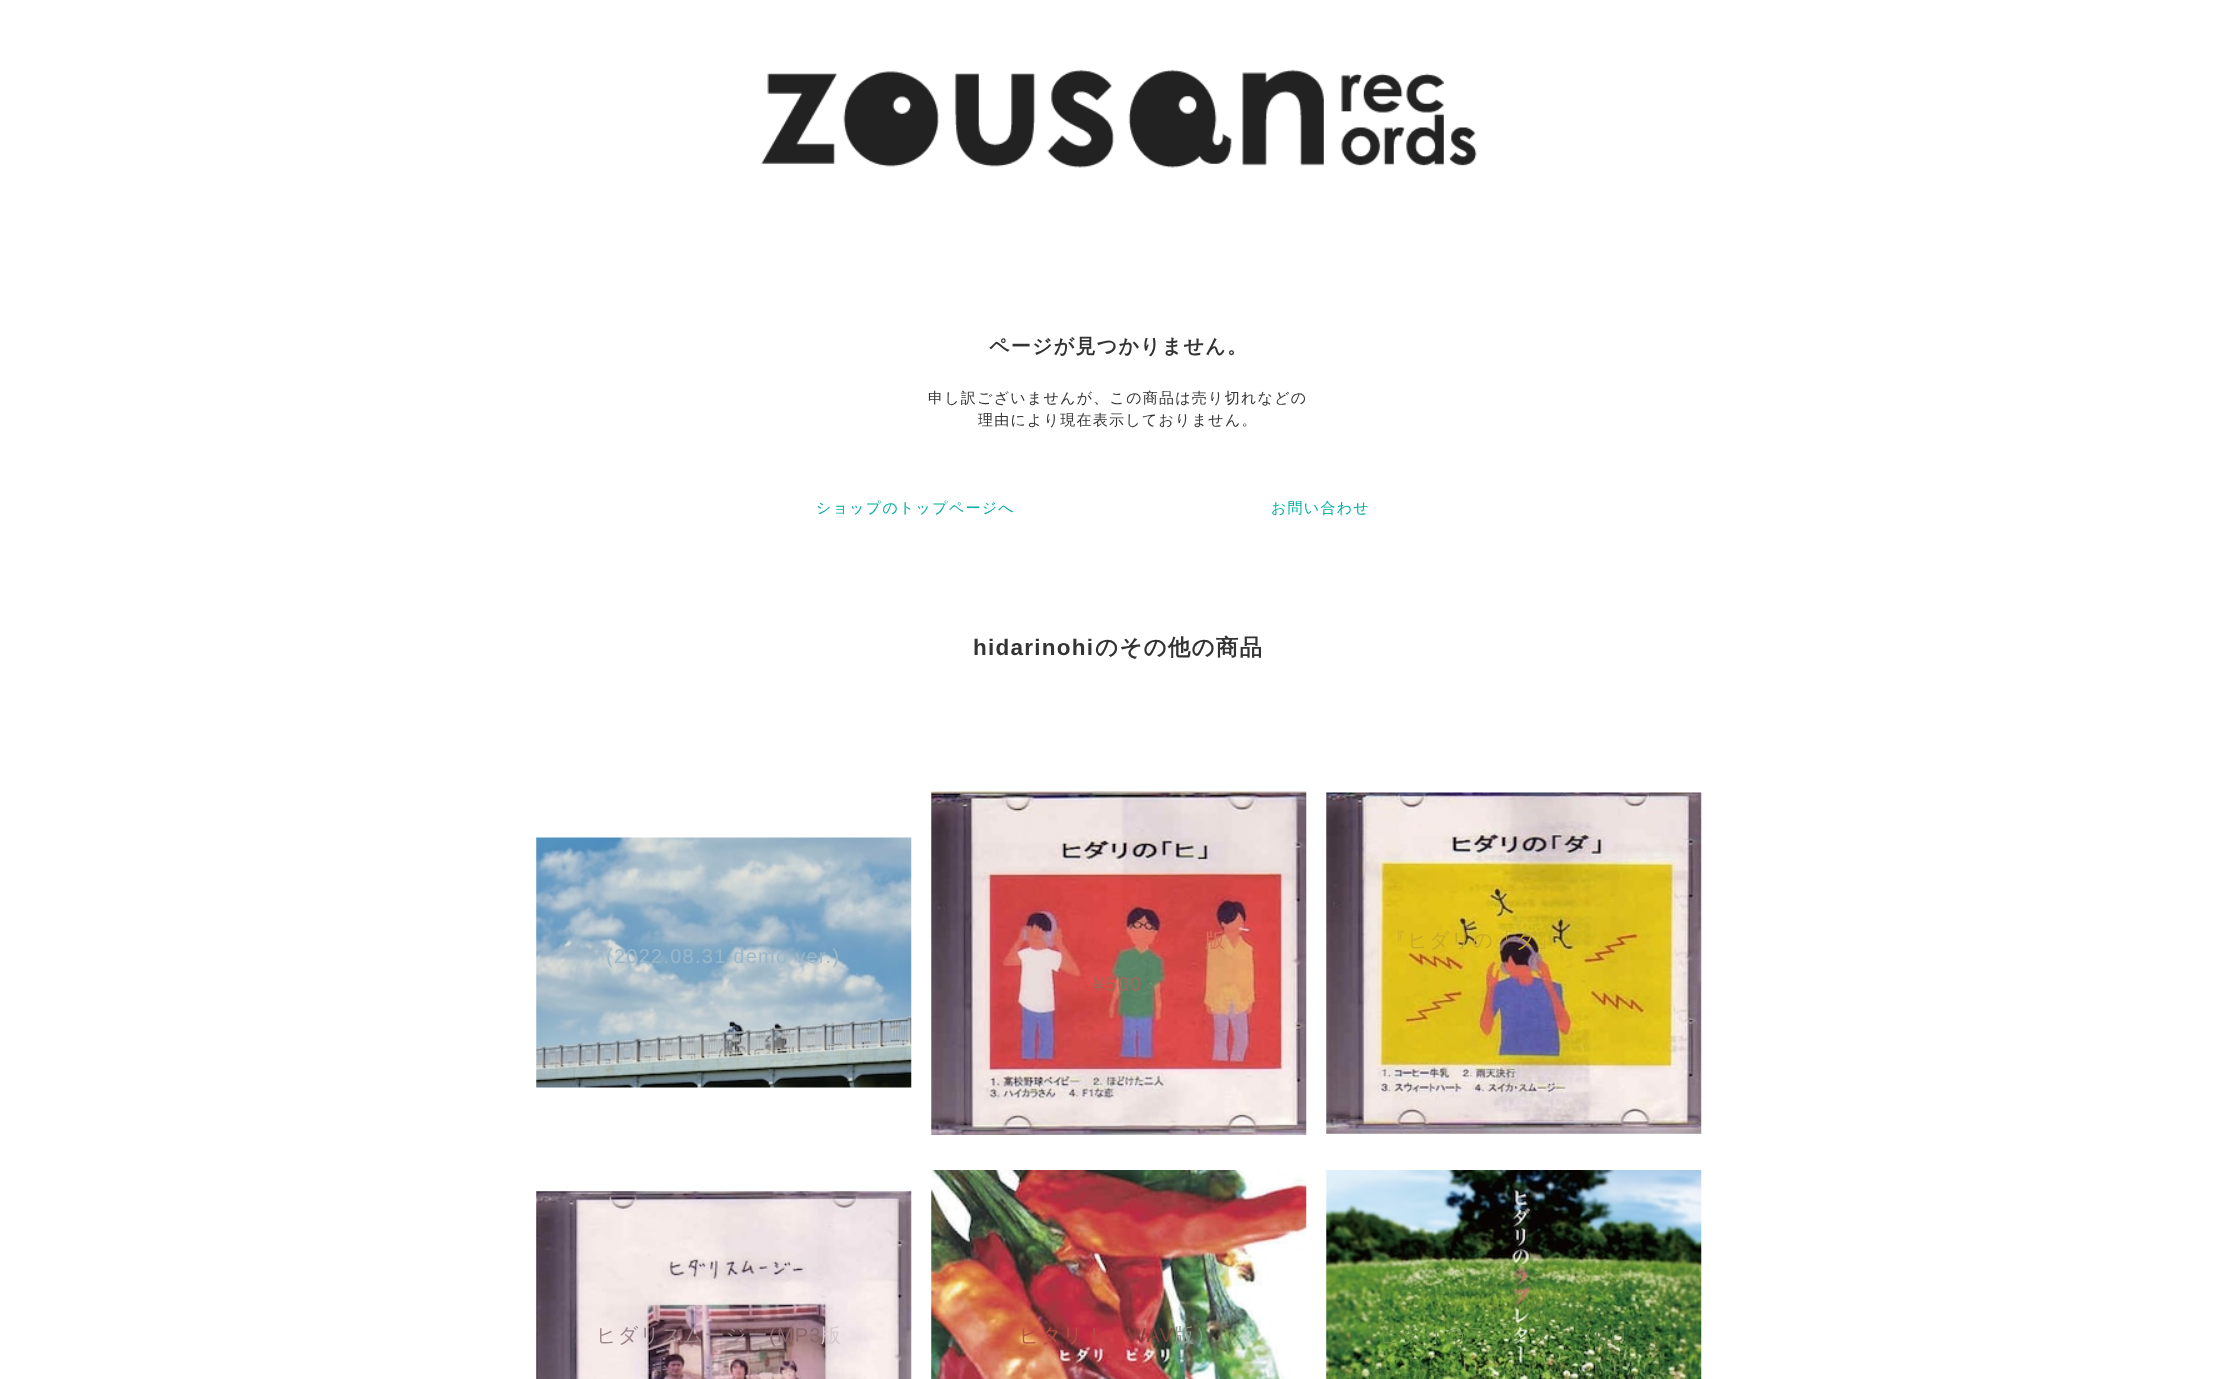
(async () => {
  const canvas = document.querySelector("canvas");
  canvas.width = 2236;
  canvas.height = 1379;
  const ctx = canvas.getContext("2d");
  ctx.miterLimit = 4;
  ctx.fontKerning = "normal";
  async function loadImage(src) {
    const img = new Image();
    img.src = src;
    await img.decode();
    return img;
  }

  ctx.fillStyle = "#ffffff";
  ctx.fillRect(0, 0, 2236, 1379);
  ctx.drawImage(await loadImage("img/1.png"), 761, 69, 716, 99);
  ctx.drawImage(await loadImage("img/2.png"), 536, 837, 376, 251);
  ctx.drawImage(await loadImage("img/3.png"), 931, 791, 376, 344);
  ctx.drawImage(await loadImage("img/4.png"), 1326, 792, 376, 342);
  ctx.drawImage(await loadImage("img/5.png"), 536, 1191, 376, 188);
  ctx.drawImage(await loadImage("img/6.png"), 931, 1170, 376, 209);
  ctx.drawImage(await loadImage("img/7.png"), 1326, 1170, 376, 209);
  ctx.letterSpacing = "1.25px";
  ctx.font = "bold 20px WenQuanYi Zen Hei";
  ctx.fillStyle = "#333333";
  ctx.fillText("ページが見つかりません。", 989, 353);
  ctx.font = "500 15px WenQuanYi Zen Hei";
  ctx.fillText("申し訳ございませんが、この商品は売り切れなどの", 928, 403);
  ctx.fillText("理由により現在表示しておりません。", 978, 425);
  ctx.fillStyle = "#00ae9f";
  ctx.fillText("ショップのトップページへ", 816, 513);
  ctx.fillText("お問い合わせ", 1271, 513);
  ctx.font = "bold 22.5px Liberation Sans";
  ctx.fillStyle = "#333333";
  ctx.fillText("hidarinohi", 973, 655);
  ctx.font = "bold 22.5px WenQuanYi Zen Hei";
  ctx.fillText("のその他の商品", 1095, 655);
  ctx.font = "20px Liberation Sans";
  ctx.fillStyle = "#9bb8cb";
  ctx.fillText("(2022.08.31 demo ver.)", 606, 963);
  ctx.font = "500 20px WenQuanYi Zen Hei";
  ctx.fillStyle = "#d67358";
  ctx.fillText("版", 1205, 947);
  ctx.font = "20px Liberation Sans";
  ctx.fillStyle = "#a06858";
  ctx.fillText("¥500", 1093, 991);
  ctx.font = "500 20px WenQuanYi Zen Hei";
  ctx.fillStyle = "#c6a926";
  ctx.fillText("『ヒダリの「ダ」", 1386, 947);
  ctx.fillStyle = "#9b858a";
  ctx.fillText("ヒダリスムージー", 596, 1342);
  ctx.font = "20px Liberation Sans";
  ctx.fillStyle = "#8a696f";
  ctx.fillText("(MP3", 769, 1342);
  ctx.font = "500 20px WenQuanYi Zen Hei";
  ctx.fillStyle = "#d7c8ce";
  ctx.fillText("版", 821, 1342);
  ctx.fillStyle = "#b64e44";
  ctx.fillText("ピタリ！", 1019, 1342);
  ctx.font = "20px Liberation Sans";
  ctx.fillStyle = "#7e433f";
  ctx.fillText("WAV", 1127, 1342);
  ctx.font = "500 20px WenQuanYi Zen Hei";
  ctx.fillStyle = "#889f8e";
  ctx.fillText("版）", 1174, 1342);
  ctx.fillStyle = "#689047";
  ctx.fillText("ヒダリのラブレター（", 1379, 1342);
  ctx.font = "20px Liberation Sans";
  ctx.fillStyle = "#5f8149";
  ctx.fillText("CD", 1595, 1342);
})();
